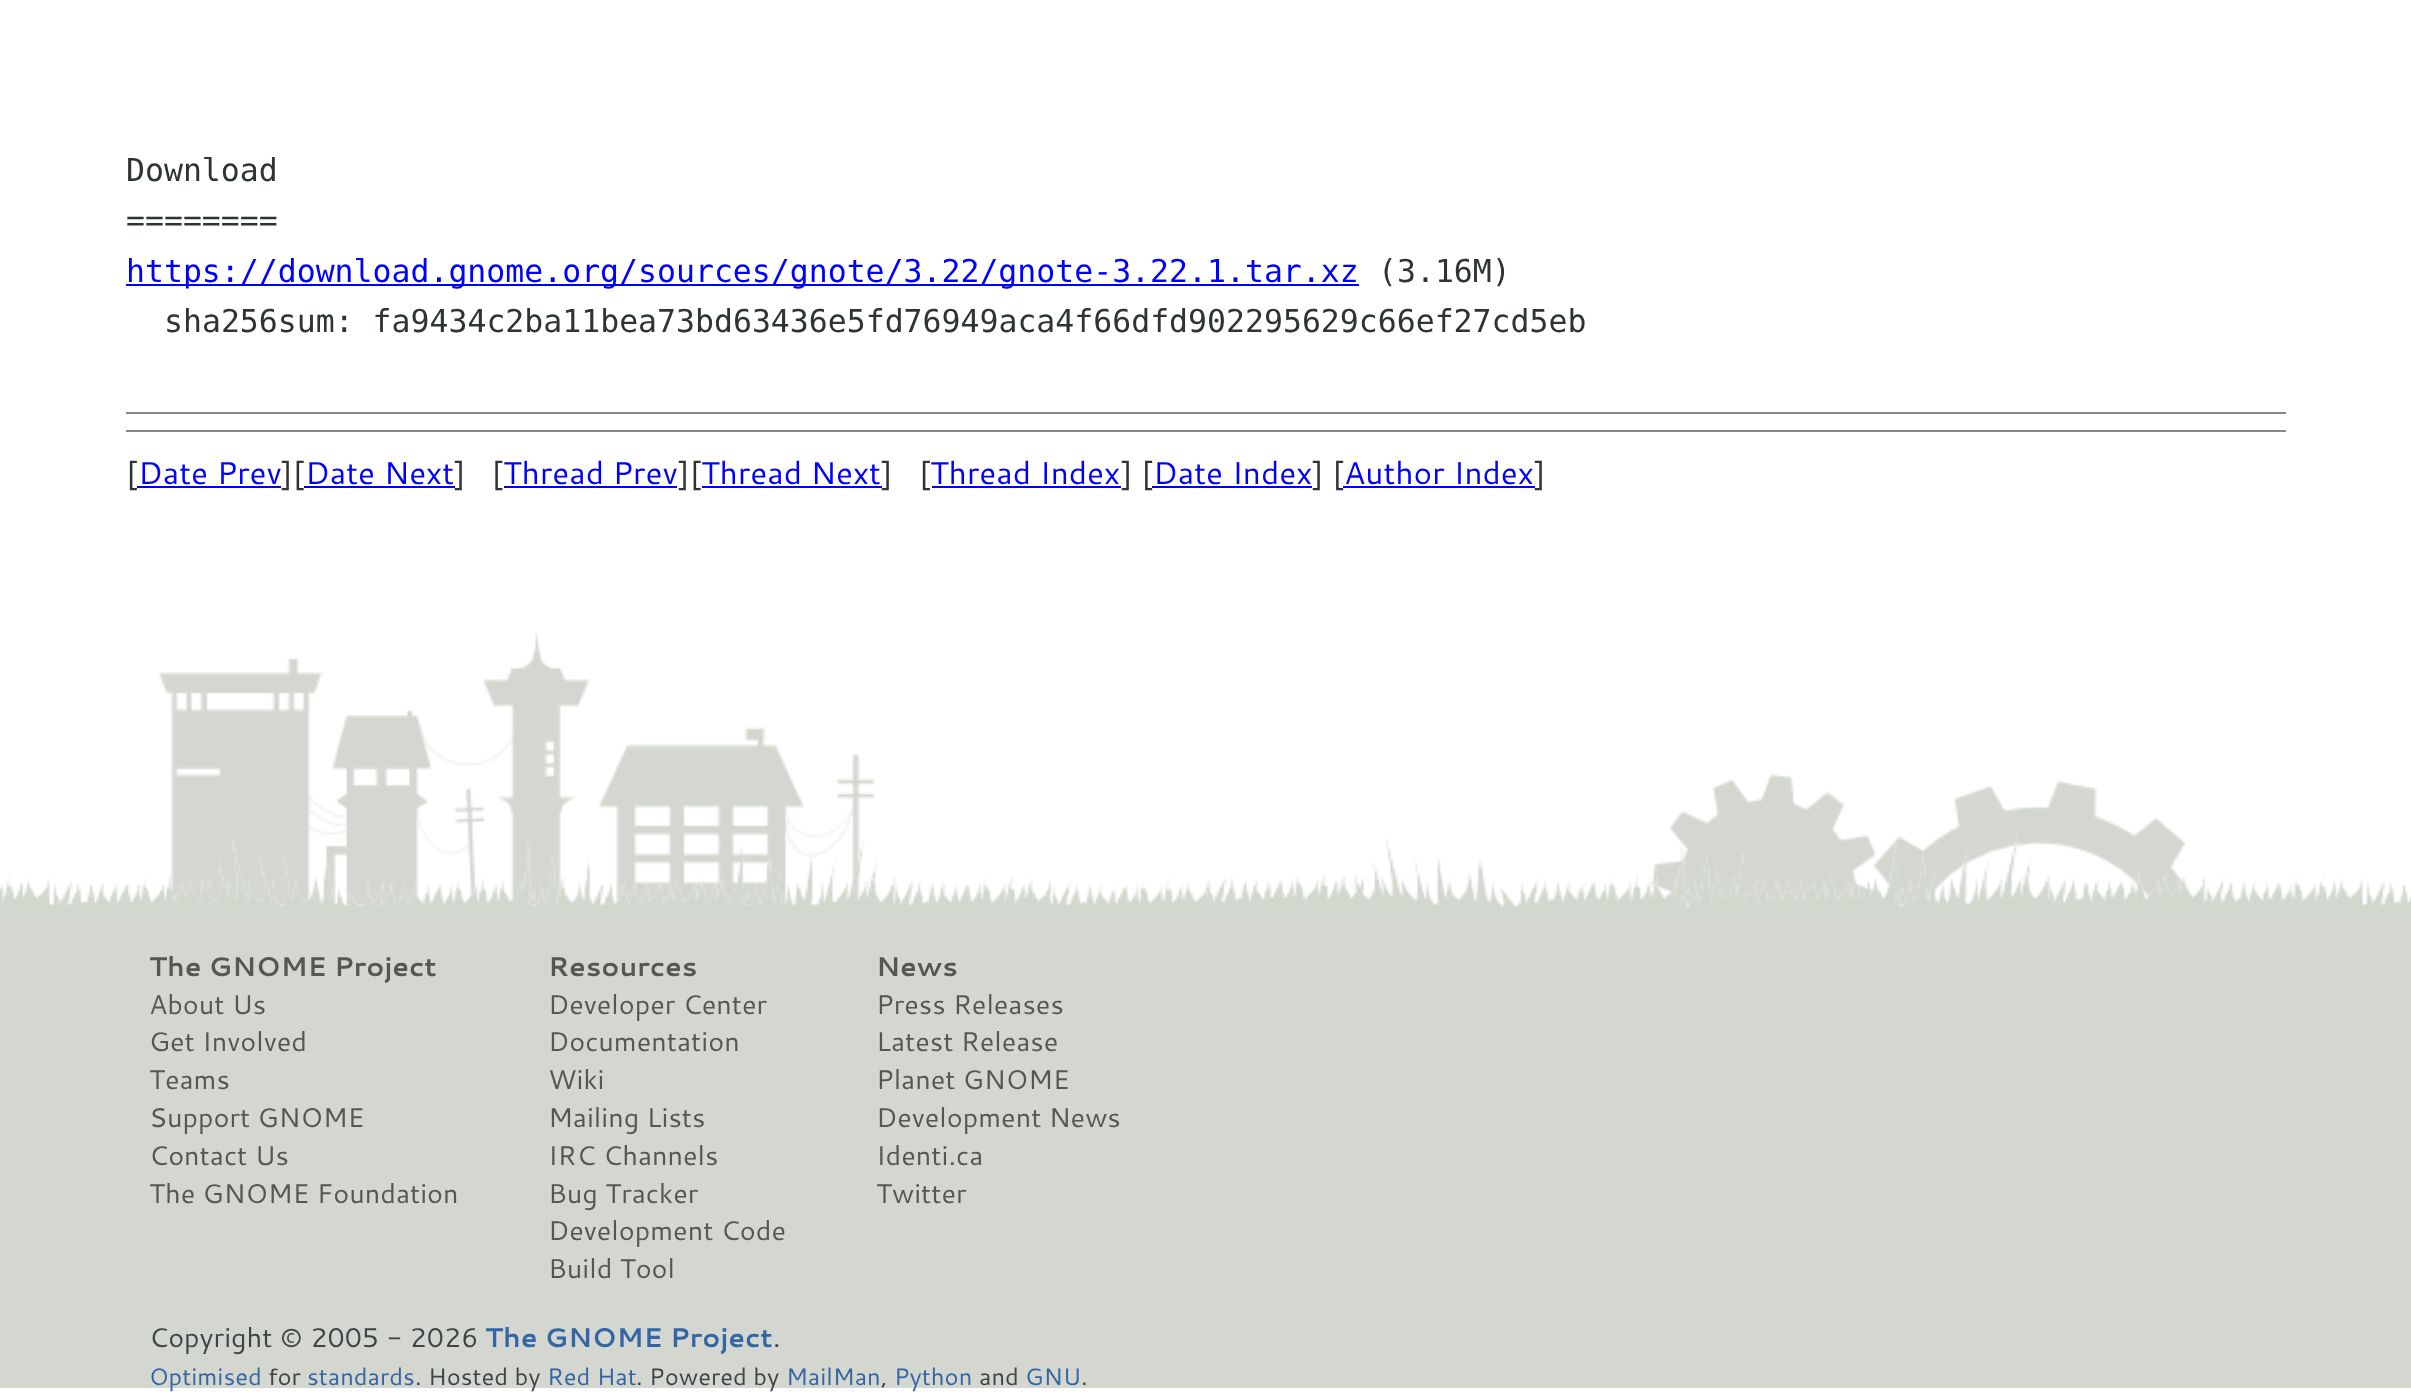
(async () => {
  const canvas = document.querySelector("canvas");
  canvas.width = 2411;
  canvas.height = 1395;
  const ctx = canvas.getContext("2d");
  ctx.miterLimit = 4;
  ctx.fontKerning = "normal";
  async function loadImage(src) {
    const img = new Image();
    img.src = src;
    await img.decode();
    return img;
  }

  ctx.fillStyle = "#ffffff";
  ctx.fillRect(0, 0, 2411, 1395);
  for (const [x, y, w, h, color] of [
    [126, 284, 1233, 2, "#0000ff"],
    [126, 412, 2160, 2, "#888888"],
    [126, 430, 2160, 2, "#888888"],
    [137, 486, 144, 2, "#0000ff"],
    [504, 486, 173, 2, "#0000ff"],
    [702, 486, 180, 2, "#0000ff"],
    [932, 486, 189, 2, "#0000ff"],
    [1152, 486, 160, 2, "#0000ff"],
    [1343, 486, 192, 2, "#0000ff"],
  ]) {
    ctx.fillStyle = color;
    ctx.fillRect(x, y, w, h);
  }
  ctx.drawImage(await loadImage("img/1.png"), 159, 632, 2067, 273);
  ctx.drawImage(await loadImage("img/2.png"), 0, 833, 2411, 85);
  ctx.fillStyle = "#d3d7cf";
  ctx.fillRect(0, 918, 2411, 470);
  ctx.font = "31.5px DejaVu Sans Mono";
  ctx.fillStyle = "#2e3436";
  ctx.fillText("Download", 126, 181);
  ctx.fillText("========", 126, 231);
  ctx.fillStyle = "#0000ff";
  ctx.fillText("https://download.gnome.org/sources/gnote/3.22/gnote-3.22.1.tar.xz", 126, 282);
  ctx.fillStyle = "#2e3436";
  ctx.fillText("(3.16M)", 1378, 282);
  ctx.fillText("sha256sum: fa9434c2ba11bea73bd63436e5fd76949aca4f66dfd902295629c66ef27cd5eb", 164, 332);
  ctx.font = "31.5px Cantarell";
  ctx.fillText("[", 126, 484);
  ctx.fillStyle = "#0000ff";
  ctx.fillText("Date Prev", 138, 484);
  ctx.fillStyle = "#2e3436";
  ctx.fillText("][", 281, 484);
  ctx.fillStyle = "#0000ff";
  ctx.fillText("Date Next", 305, 484);
  ctx.fillRect(304, 486, 151, 2);
  ctx.fillStyle = "#2e3436";
  ctx.fillText("]   [", 454, 484);
  ctx.fillStyle = "#0000ff";
  ctx.fillText("Thread Prev", 503, 484);
  ctx.fillStyle = "#2e3436";
  ctx.fillText("][", 678, 484);
  ctx.fillStyle = "#0000ff";
  ctx.fillText("Thread Next", 701, 484);
  ctx.fillStyle = "#2e3436";
  ctx.fillText("]", 881, 484);
  ctx.fillText("[", 919, 484);
  ctx.fillStyle = "#0000ff";
  ctx.fillText("Thread Index", 930, 484);
  ctx.fillStyle = "#2e3436";
  ctx.fillText("] [", 1121, 484);
  ctx.fillStyle = "#0000ff";
  ctx.fillText("Date Index", 1153, 484);
  ctx.fillStyle = "#2e3436";
  ctx.fillText("] [", 1312, 484);
  ctx.fillStyle = "#0000ff";
  ctx.fillText("Author Index", 1344, 484);
  ctx.fillStyle = "#2e3436";
  ctx.fillText("]", 1534, 484);
  ctx.font = "bold 27px Cantarell";
  ctx.fillStyle = "#555753";
  ctx.fillText("The GNOME Project", 149, 976);
  ctx.font = "27px Cantarell";
  for (const [text, x, y] of [
    ["About Us", 149, 1014],
    ["Get Involved", 149, 1051],
    ["Teams", 149, 1089],
    ["Support GNOME", 149, 1127],
    ["Contact Us", 149, 1165],
    ["The GNOME Foundation", 149, 1203],
  ]) {
    ctx.fillText(text, x, y);
  }
  ctx.font = "bold 27px Cantarell";
  ctx.fillText("Resources", 548, 976);
  ctx.font = "27px Cantarell";
  for (const [text, x, y] of [
    ["Developer Center", 548, 1014],
    ["Documentation", 548, 1051],
    ["Wiki", 548, 1089],
    ["Mailing Lists", 548, 1127],
    ["IRC Channels", 548, 1165],
    ["Bug Tracker", 548, 1203],
    ["Development Code", 548, 1240],
    ["Build Tool", 548, 1278],
  ]) {
    ctx.fillText(text, x, y);
  }
  ctx.font = "bold 27px Cantarell";
  ctx.fillText("News", 876, 976);
  ctx.font = "27px Cantarell";
  for (const [text, x, y] of [
    ["Press Releases", 876, 1014],
    ["Latest Release", 876, 1051],
    ["Planet GNOME", 876, 1089],
    ["Development News", 876, 1127],
    ["Identi.ca", 876, 1165],
    ["Twitter", 876, 1203],
  ]) {
    ctx.fillText(text, x, y);
  }
  ctx.fillStyle = "#3f4448";
  ctx.fillText("Copyright © 2005 - 2026", 149, 1347);
  ctx.font = "bold 27px Cantarell";
  ctx.fillStyle = "#3465a4";
  ctx.fillText("The GNOME Project", 485, 1347);
  ctx.font = "27px Cantarell";
  ctx.fillStyle = "#3f4448";
  ctx.fillText(".", 773, 1347);
  ctx.font = "23.75px Cantarell";
  ctx.fillStyle = "#3465a4";
  ctx.fillText("Optimised", 149, 1385);
  ctx.fillStyle = "#3f4448";
  ctx.fillText("for", 268, 1385);
  ctx.fillStyle = "#3465a4";
  ctx.fillText("standards", 307, 1385);
  ctx.fillStyle = "#3f4448";
  ctx.fillText(". Hosted by", 415, 1385);
  ctx.fillStyle = "#3465a4";
  ctx.fillText("Red Hat", 547, 1385);
  ctx.fillStyle = "#3f4448";
  ctx.fillText(". Powered by", 636, 1385);
  ctx.fillStyle = "#3465a4";
  ctx.fillText("MailMan", 786, 1385);
  ctx.fillStyle = "#3f4448";
  ctx.fillText(",", 881, 1385);
  ctx.fillStyle = "#3465a4";
  ctx.fillText("Python", 894, 1385);
  ctx.fillStyle = "#3f4448";
  ctx.fillText("and", 979, 1385);
  ctx.fillStyle = "#3465a4";
  ctx.fillText("GNU", 1025, 1385);
  ctx.fillStyle = "#3f4448";
  ctx.fillText(".", 1081, 1385);
})();
